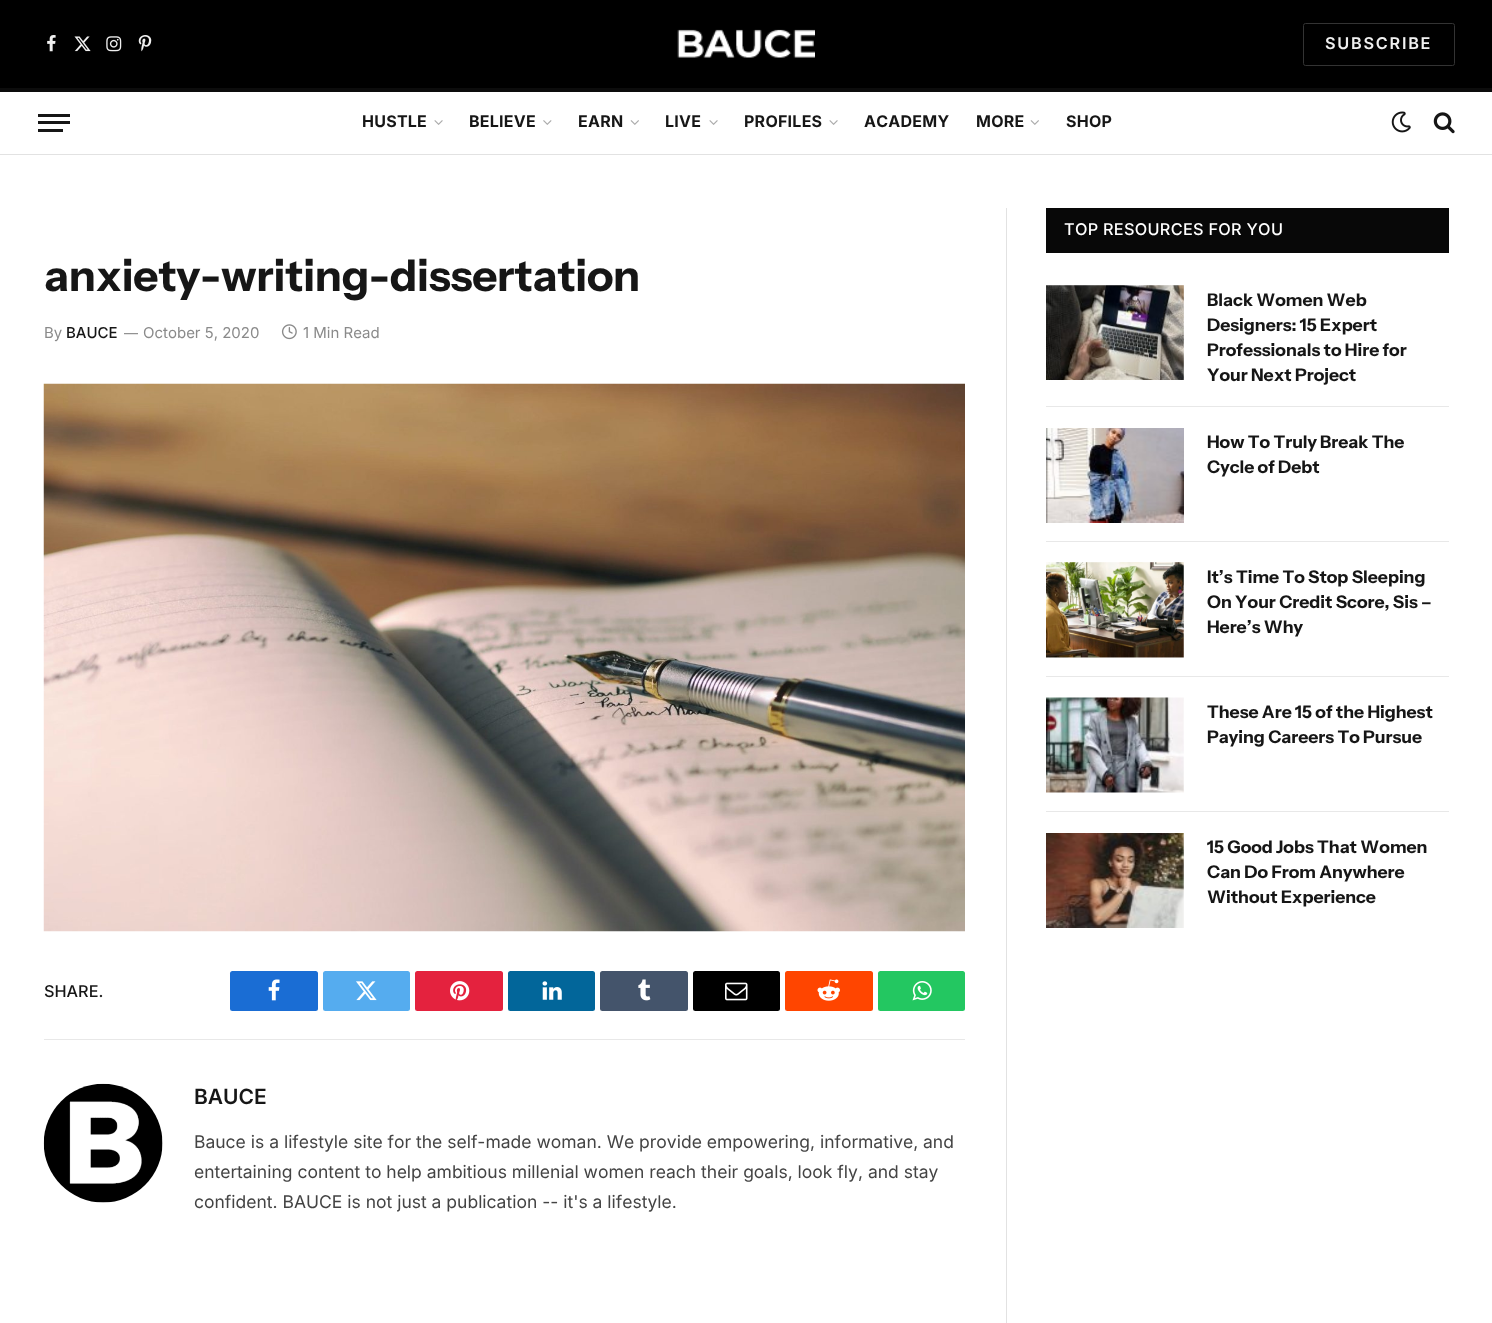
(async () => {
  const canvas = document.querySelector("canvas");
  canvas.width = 1492;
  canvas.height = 1323;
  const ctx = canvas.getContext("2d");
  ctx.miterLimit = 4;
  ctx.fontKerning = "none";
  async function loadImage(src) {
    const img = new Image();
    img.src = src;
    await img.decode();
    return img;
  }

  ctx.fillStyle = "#ffffff";
  ctx.fillRect(0, 0, 1492, 1323);
  ctx.fillStyle = "#000000";
  ctx.fillRect(0, 0, 1492, 88);
  ctx.drawImage(await loadImage("img/1.png"), 47, 35, 9, 17);
  ctx.drawImage(await loadImage("img/2.png"), 74, 36, 17, 16);
  ctx.drawImage(await loadImage("img/3.png"), 106, 36, 16, 16);
  ctx.drawImage(await loadImage("img/4.png"), 138, 35, 14, 17);
  ctx.drawImage(await loadImage("img/5.png"), 677, 29, 138, 29);
  ctx.beginPath();
  ctx.roundRect(1303.5, 23.5, 151, 42, 2);
  ctx.strokeStyle = "#333333";
  ctx.stroke();
  for (const [x, y, w, h, color] of [
    [0, 88, 1492, 4, "#0c0c0c"],
    [0, 154, 1492, 1, "#e2e2e2"],
    [38, 129, 25, 3, "#161616"],
    [38, 114, 32, 3, "#161616"],
    [38, 121, 32, 3, "#161616"],
  ]) {
    ctx.fillStyle = color;
    ctx.fillRect(x, y, w, h);
  }
  ctx.drawImage(await loadImage("img/6.png"), 434, 120, 9, 5);
  ctx.drawImage(await loadImage("img/7.png"), 543, 120, 9, 5);
  ctx.drawImage(await loadImage("img/8.png"), 630, 120, 9, 5);
  ctx.drawImage(await loadImage("img/6.png"), 709, 120, 9, 5);
  ctx.drawImage(await loadImage("img/6.png"), 829, 120, 9, 5);
  ctx.drawImage(await loadImage("img/8.png"), 1030, 120, 9, 5);
  ctx.drawImage(await loadImage("img/9.png"), 1391, 111, 20, 22);
  ctx.drawImage(await loadImage("img/10.png"), 1433, 112, 22, 22);
  ctx.drawImage(await loadImage("img/11.png"), 281, 324, 16, 16);
  ctx.drawImage(await loadImage("img/12.png"), 43, 383, 922, 549);
  ctx.fillStyle = "#1a6dd4";
  ctx.beginPath();
  ctx.roundRect(230, 971, 88, 40, 2.5);
  ctx.fill();
  ctx.drawImage(await loadImage("img/13.png"), 268, 979, 12, 22);
  ctx.fillStyle = "#55acef";
  ctx.beginPath();
  ctx.roundRect(323, 971, 87, 40, 2.5);
  ctx.fill();
  ctx.drawImage(await loadImage("img/14.png"), 356, 981, 21, 20);
  ctx.fillStyle = "#e4223e";
  ctx.beginPath();
  ctx.roundRect(415, 971, 88, 40, 2.5);
  ctx.fill();
  ctx.drawImage(await loadImage("img/15.png"), 450, 981, 20, 20);
  ctx.fillStyle = "#02669a";
  ctx.beginPath();
  ctx.roundRect(508, 971, 87, 40, 2.5);
  ctx.fill();
  ctx.drawImage(await loadImage("img/16.png"), 542, 981, 20, 19);
  ctx.fillStyle = "#44546b";
  ctx.beginPath();
  ctx.roundRect(600, 971, 88, 40, 2.5);
  ctx.fill();
  ctx.drawImage(await loadImage("img/17.png"), 638, 979, 13, 22);
  ctx.fillStyle = "#000000";
  ctx.beginPath();
  ctx.roundRect(693, 971, 87, 40, 2.5);
  ctx.fill();
  ctx.drawImage(await loadImage("img/18.png"), 725, 982, 23, 19);
  ctx.fillStyle = "#ff4500";
  ctx.beginPath();
  ctx.roundRect(785, 971, 88, 40, 2.5);
  ctx.fill();
  ctx.drawImage(await loadImage("img/19.png"), 817, 979, 23, 22);
  ctx.fillStyle = "#23c761";
  ctx.beginPath();
  ctx.roundRect(878, 971, 87, 40, 2.5);
  ctx.fill();
  ctx.drawImage(await loadImage("img/20.png"), 912, 981, 20, 20);
  ctx.fillStyle = "#e8e8e8";
  ctx.fillRect(44, 1039, 921, 1);
  ctx.drawImage(await loadImage("img/21.png"), 43, 1083, 120, 120);
  ctx.fillStyle = "#e2e2e2";
  ctx.fillRect(1006, 208, 1, 1115);
  ctx.fillStyle = "#080808";
  ctx.fillRect(1046, 208, 403, 45);
  ctx.drawImage(await loadImage("img/22.png"), 1046, 285, 138, 95);
  ctx.fillStyle = "#e8e8e8";
  ctx.fillRect(1046, 406, 403, 1);
  ctx.drawImage(await loadImage("img/23.png"), 1046, 428, 138, 95);
  ctx.fillRect(1046, 541, 403, 1);
  ctx.drawImage(await loadImage("img/24.png"), 1046, 562, 138, 96);
  ctx.fillRect(1046, 676, 403, 1);
  ctx.drawImage(await loadImage("img/25.png"), 1046, 697, 138, 96);
  ctx.fillRect(1046, 811, 403, 1);
  ctx.drawImage(await loadImage("img/26.png"), 1046, 833, 138, 95);
  ctx.letterSpacing = "1.75px";
  ctx.font = "600 16.25px Inter";
  ctx.fillStyle = "#f0f0f0";
  ctx.fillText("SUBSCRIBE", 1325, 49);
  ctx.letterSpacing = "0.25px";
  ctx.font = "bold 16px Inter";
  ctx.fillStyle = "#161616";
  for (const [text, x, y] of [
    ["HUSTLE", 362, 127],
    ["BELIEVE", 469, 127],
    ["EARN", 578, 127],
    ["LIVE", 665, 127],
    ["PROFILES", 744, 127],
    ["ACADEMY", 864, 127],
    ["MORE", 976, 127],
    ["SHOP", 1066, 127],
  ]) {
    ctx.fillText(text, x, y);
  }
  ctx.letterSpacing = "-0.25px";
  ctx.font = "bold 43.75px Instrument Sans";
  ctx.fillText("anxiety-writing-dissertation", 44, 291);
  ctx.letterSpacing = "0px";
  ctx.font = "15px Inter";
  ctx.fillStyle = "#8a8a8a";
  ctx.fillText("By", 44, 338);
  ctx.font = "500 15px Inter";
  ctx.fillStyle = "#161616";
  ctx.fillText("BAUCE", 66, 338);
  ctx.font = "14px Inter";
  ctx.fillStyle = "#8a8a8a";
  ctx.fillText("—", 124, 338);
  ctx.font = "15px Inter";
  ctx.fillText("October 5, 2020", 143, 338);
  ctx.fillText("1 Min Read", 303, 338);
  ctx.font = "500 16.25px Inter";
  ctx.fillStyle = "#161616";
  ctx.fillText("SHARE.", 44, 997);
  ctx.font = "600 21px Inter";
  ctx.fillText("BAUCE", 194, 1104);
  ctx.font = "17.5px Inter";
  ctx.fillStyle = "#444444";
  for (const [text, x, y] of [
    ["Bauce is a lifestyle site for the self-made woman. We provide empowering, informative,", 194, 1148],
    ["and", 923, 1148],
    ["entertaining content to help ambitious millenial women reach their goals, look fly, and stay", 194, 1178],
    ["confident. BAUCE is not just a publication -- it's a lifestyle.", 194, 1208],
  ]) {
    ctx.fillText(text, x, y);
  }
  ctx.letterSpacing = "0.3px";
  ctx.font = "500 16.25px Inter";
  ctx.fillStyle = "#ffffff";
  ctx.fillText("TOP RESOURCES FOR YOU", 1064, 235);
  ctx.letterSpacing = "0px";
  ctx.font = "bold 17.5px Instrument Sans";
  ctx.fillStyle = "#161616";
  for (const [text, x, y] of [
    ["Black Women Web", 1207, 306],
    ["Designers: 15 Expert", 1207, 331],
    ["Professionals to Hire for", 1207, 356],
    ["Your Next Project", 1207, 381],
    ["How To Truly", 1207, 448],
    ["Break The", 1320, 448],
    ["Cycle of Debt", 1207, 473],
    ["It’s Time To", 1207, 583],
    ["Stop Sleeping", 1308, 583],
    ["On Your Credit Score, Sis –", 1207, 608],
    ["Here’s Why", 1207, 633],
    ["These Are 15 of the Highest", 1207, 718],
    ["Paying Careers To Pursue", 1207, 743],
    ["15 Good Jobs That Women", 1207, 853],
    ["Can Do From Anywhere", 1207, 878],
    ["Without Experience", 1207, 903],
  ]) {
    ctx.fillText(text, x, y);
  }
})();
